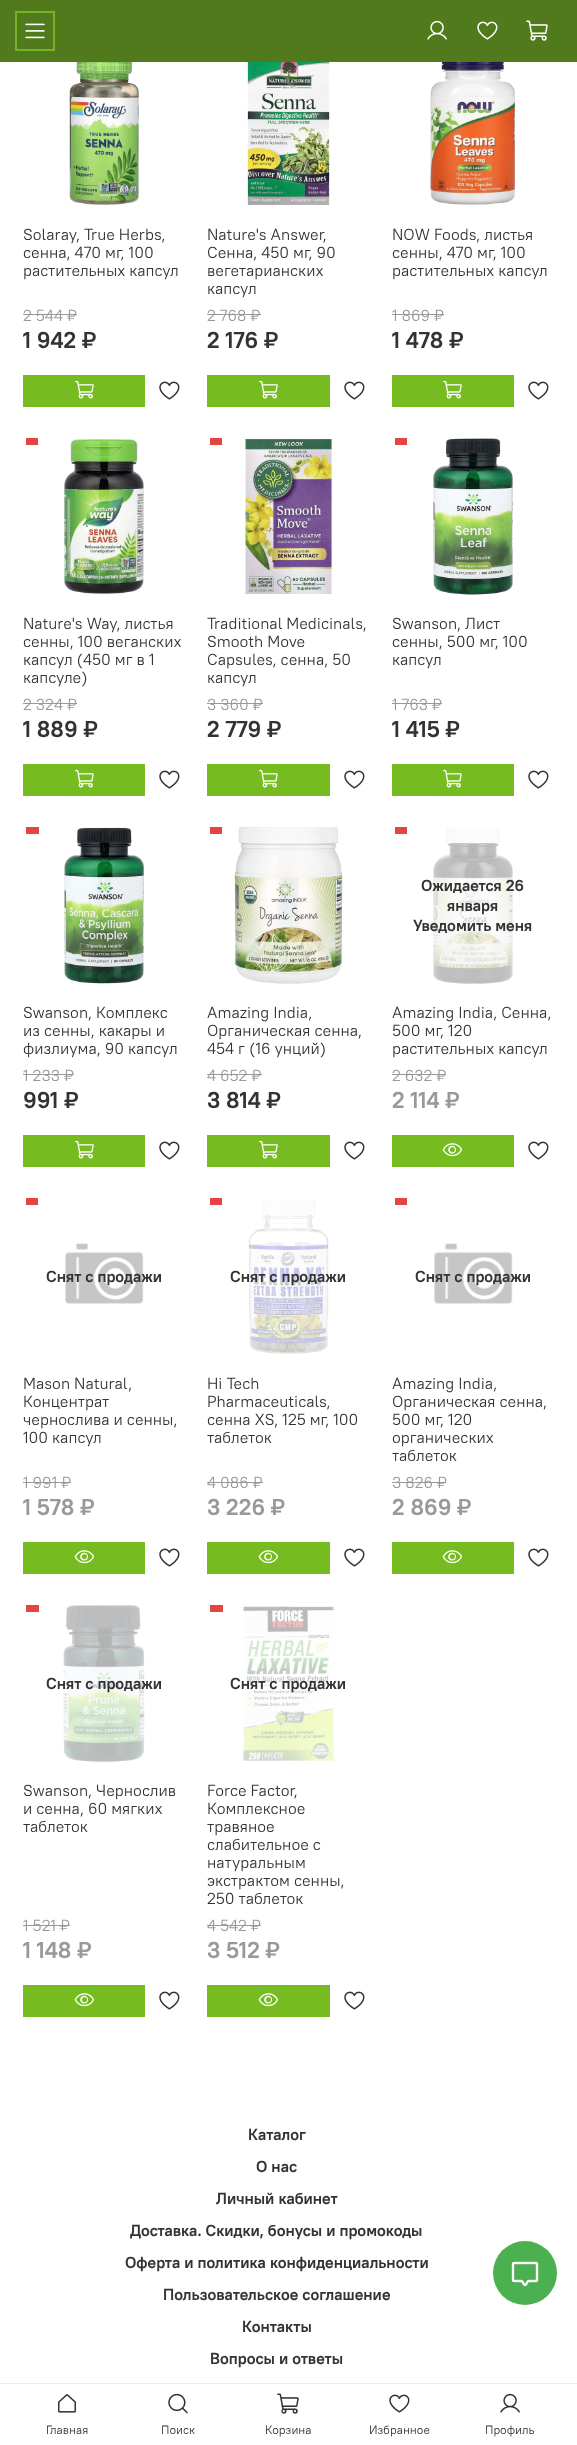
(async () => {
  const canvas = document.querySelector("canvas");
  canvas.width = 577;
  canvas.height = 2445;
  const ctx = canvas.getContext("2d");
  ctx.miterLimit = 4;
  ctx.fontKerning = "normal";
  async function loadImage(src) {
    const img = new Image();
    img.src = src;
    await img.decode();
    return img;
  }

  ctx.fillStyle = "#ffffff";
  ctx.fillRect(0, 0, 577, 2445);
  ctx.fillStyle = "#507a1c";
  ctx.fillRect(0, 0, 577, 62);
  ctx.strokeStyle = "#75b429";
  ctx.lineWidth = 2;
  ctx.strokeRect(16, 12, 38, 38);
  ctx.drawImage(await loadImage("img/1.png"), 25, 23, 20, 16);
  ctx.drawImage(await loadImage("img/2.png"), 427, 20, 20, 20);
  ctx.drawImage(await loadImage("img/3.png"), 477, 21, 21, 19);
  ctx.drawImage(await loadImage("img/4.png"), 526, 20, 22, 21);
  ctx.drawImage(await loadImage("img/5.png"), 69, 62, 70, 143);
  ctx.fillStyle = "#999999";
  ctx.fillRect(23, 314, 54, 1);
  ctx.fillStyle = "#76bc21";
  ctx.fillRect(23, 375, 122, 32);
  ctx.drawImage(await loadImage("img/6.png"), 75, 380, 19, 19);
  ctx.drawImage(await loadImage("img/7.png"), 159, 381, 21, 19);
  ctx.drawImage(await loadImage("img/8.png"), 247, 62, 83, 143);
  ctx.fillStyle = "#999999";
  ctx.fillRect(207, 314, 54, 1);
  ctx.fillStyle = "#76bc21";
  ctx.fillRect(207, 375, 123, 32);
  ctx.drawImage(await loadImage("img/6.png"), 259, 380, 19, 19);
  ctx.drawImage(await loadImage("img/7.png"), 344, 381, 21, 19);
  ctx.drawImage(await loadImage("img/9.png"), 430, 62, 86, 143);
  ctx.fillStyle = "#999999";
  ctx.fillRect(392, 314, 52, 1);
  ctx.fillStyle = "#76bc21";
  ctx.fillRect(392, 375, 122, 32);
  ctx.drawImage(await loadImage("img/6.png"), 443, 380, 19, 19);
  ctx.drawImage(await loadImage("img/7.png"), 528, 381, 21, 19);
  ctx.fillStyle = "#e44542";
  ctx.fillRect(26, 438, 12, 7);
  ctx.drawImage(await loadImage("img/10.png"), 64, 438, 80, 156);
  ctx.fillStyle = "#999999";
  ctx.fillRect(23, 703, 54, 1);
  ctx.fillStyle = "#76bc21";
  ctx.fillRect(23, 764, 122, 32);
  ctx.drawImage(await loadImage("img/6.png"), 75, 769, 19, 19);
  ctx.drawImage(await loadImage("img/7.png"), 159, 770, 21, 19);
  ctx.fillStyle = "#e44542";
  ctx.fillRect(210, 438, 12, 7);
  ctx.drawImage(await loadImage("img/11.png"), 245, 438, 88, 156);
  ctx.fillStyle = "#999999";
  ctx.fillRect(207, 703, 56, 1);
  ctx.fillStyle = "#76bc21";
  ctx.fillRect(207, 764, 123, 32);
  ctx.drawImage(await loadImage("img/6.png"), 259, 769, 19, 19);
  ctx.drawImage(await loadImage("img/7.png"), 344, 770, 21, 19);
  ctx.fillStyle = "#e44542";
  ctx.fillRect(395, 438, 12, 7);
  ctx.drawImage(await loadImage("img/12.png"), 433, 438, 80, 157);
  ctx.fillStyle = "#999999";
  ctx.fillRect(392, 703, 50, 1);
  ctx.fillStyle = "#76bc21";
  ctx.fillRect(392, 764, 122, 32);
  ctx.drawImage(await loadImage("img/6.png"), 443, 769, 19, 19);
  ctx.drawImage(await loadImage("img/7.png"), 528, 770, 21, 19);
  ctx.fillStyle = "#e44542";
  ctx.fillRect(26, 827, 13, 7);
  ctx.drawImage(await loadImage("img/13.png"), 64, 827, 80, 157);
  ctx.fillStyle = "#999999";
  ctx.fillRect(23, 1074, 51, 1);
  ctx.fillStyle = "#76bc21";
  ctx.fillRect(23, 1135, 122, 32);
  ctx.drawImage(await loadImage("img/6.png"), 75, 1140, 19, 19);
  ctx.drawImage(await loadImage("img/7.png"), 159, 1141, 21, 19);
  ctx.fillStyle = "#e44542";
  ctx.fillRect(210, 827, 12, 7);
  ctx.drawImage(await loadImage("img/14.png"), 234, 827, 109, 157);
  ctx.fillStyle = "#999999";
  ctx.fillRect(207, 1074, 55, 1);
  ctx.fillStyle = "#76bc21";
  ctx.fillRect(207, 1135, 123, 32);
  ctx.drawImage(await loadImage("img/6.png"), 259, 1140, 19, 19);
  ctx.drawImage(await loadImage("img/7.png"), 344, 1141, 21, 19);
  ctx.fillStyle = "#e44542";
  ctx.fillRect(395, 827, 12, 7);
  ctx.drawImage(await loadImage("img/15.png"), 433, 828, 80, 156);
  ctx.fillStyle = "#999999";
  ctx.fillRect(392, 1074, 54, 1);
  ctx.fillStyle = "#76bc21";
  ctx.fillRect(392, 1135, 122, 32);
  ctx.drawImage(await loadImage("img/16.png"), 442, 1143, 21, 14);
  ctx.drawImage(await loadImage("img/7.png"), 528, 1141, 21, 19);
  ctx.fillStyle = "#e44542";
  ctx.fillRect(26, 1198, 12, 7);
  ctx.drawImage(await loadImage("img/17.png"), 65, 1243, 79, 61);
  ctx.fillStyle = "#999999";
  ctx.fillRect(23, 1482, 48, 1);
  ctx.fillStyle = "#76bc21";
  ctx.fillRect(23, 1542, 122, 32);
  ctx.drawImage(await loadImage("img/16.png"), 74, 1550, 21, 14);
  ctx.drawImage(await loadImage("img/7.png"), 159, 1548, 21, 19);
  ctx.fillStyle = "#e44542";
  ctx.fillRect(210, 1198, 12, 7);
  ctx.drawImage(await loadImage("img/18.png"), 248, 1200, 81, 154);
  ctx.fillStyle = "#999999";
  ctx.fillRect(207, 1482, 56, 1);
  ctx.fillStyle = "#76bc21";
  ctx.fillRect(207, 1542, 123, 32);
  ctx.drawImage(await loadImage("img/16.png"), 258, 1550, 21, 14);
  ctx.drawImage(await loadImage("img/7.png"), 344, 1548, 21, 19);
  ctx.fillStyle = "#e44542";
  ctx.fillRect(395, 1198, 12, 7);
  ctx.drawImage(await loadImage("img/17.png"), 434, 1243, 79, 61);
  ctx.fillStyle = "#999999";
  ctx.fillRect(392, 1482, 54, 1);
  ctx.fillStyle = "#76bc21";
  ctx.fillRect(392, 1542, 122, 32);
  ctx.drawImage(await loadImage("img/16.png"), 442, 1550, 21, 14);
  ctx.drawImage(await loadImage("img/7.png"), 528, 1548, 21, 19);
  ctx.fillStyle = "#e44542";
  ctx.fillRect(26, 1605, 13, 7);
  ctx.drawImage(await loadImage("img/19.png"), 63, 1605, 82, 157);
  ctx.fillStyle = "#999999";
  ctx.fillRect(23, 1925, 47, 1);
  ctx.fillStyle = "#76bc21";
  ctx.fillRect(23, 1985, 122, 32);
  ctx.drawImage(await loadImage("img/16.png"), 74, 1993, 21, 14);
  ctx.drawImage(await loadImage("img/7.png"), 159, 1991, 21, 19);
  ctx.fillStyle = "#e44542";
  ctx.fillRect(210, 1605, 13, 7);
  ctx.drawImage(await loadImage("img/20.png"), 243, 1606, 91, 155);
  ctx.fillStyle = "#999999";
  ctx.fillRect(207, 1925, 54, 1);
  ctx.fillStyle = "#76bc21";
  ctx.fillRect(207, 1985, 123, 32);
  ctx.drawImage(await loadImage("img/16.png"), 258, 1993, 21, 14);
  ctx.drawImage(await loadImage("img/7.png"), 344, 1991, 21, 19);
  ctx.fillStyle = "#4bb04f";
  ctx.beginPath();
  ctx.arc(525, 2273, 32, 0, Math.PI * 2);
  ctx.fill();
  ctx.drawImage(await loadImage("img/21.png"), 511, 2261, 28, 26);
  ctx.fillStyle = "#ededed";
  ctx.fillRect(0, 2383, 577, 1);
  ctx.drawImage(await loadImage("img/22.png"), 58, 2394, 18, 19);
  ctx.drawImage(await loadImage("img/23.png"), 168, 2393, 20, 21);
  ctx.drawImage(await loadImage("img/24.png"), 277, 2393, 22, 21);
  ctx.drawImage(await loadImage("img/7.png"), 389, 2394, 21, 19);
  ctx.drawImage(await loadImage("img/25.png"), 500, 2393, 20, 20);
  ctx.font = "16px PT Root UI";
  ctx.fillStyle = "#333333";
  for (const [text, x, y] of [
    ["Solaray, True Herbs,", 23, 240],
    ["сенна, 470 мг, 100", 23, 258],
    ["растительных капсул", 23, 276],
  ]) {
    ctx.fillText(text, x, y);
  }
  ctx.fillStyle = "#999999";
  ctx.fillText("2 544 ₽", 23, 321);
  ctx.font = "bold 23px PT Root UI";
  ctx.fillStyle = "#333333";
  ctx.fillText("1 942 ₽", 23, 348);
  ctx.font = "16px PT Root UI";
  for (const [text, x, y] of [
    ["Nature's Answer,", 207, 240],
    ["Сенна, 450 мг, 90", 207, 258],
    ["вегетарианских", 207, 276],
    ["капсул", 207, 294],
  ]) {
    ctx.fillText(text, x, y);
  }
  ctx.fillStyle = "#999999";
  ctx.fillText("2 768 ₽", 207, 321);
  ctx.font = "bold 23px PT Root UI";
  ctx.fillStyle = "#333333";
  ctx.fillText("2 176 ₽", 207, 348);
  ctx.font = "16px PT Root UI";
  for (const [text, x, y] of [
    ["NOW Foods, листья", 392, 240],
    ["сенны, 470 мг, 100", 392, 258],
    ["растительных капсул", 392, 276],
  ]) {
    ctx.fillText(text, x, y);
  }
  ctx.fillStyle = "#999999";
  ctx.fillText("1 869 ₽", 392, 321);
  ctx.save();
  ctx.beginPath();
  ctx.rect(392, 305, 162, 49);
  ctx.clip();
  ctx.font = "bold 23px PT Root UI";
  ctx.fillStyle = "#333333";
  ctx.fillText("1 478 ₽", 392, 348);
  ctx.restore();
  ctx.fillStyle = "#333333";
  for (const [text, x, y] of [
    ["Nature's Way, листья", 23, 629],
    ["сенны, 100 веганских", 23, 647],
    ["капсул (450 мг в 1", 23, 665],
    ["капсуле)", 23, 683],
  ]) {
    ctx.fillText(text, x, y);
  }
  ctx.fillStyle = "#999999";
  ctx.fillText("2 324 ₽", 23, 710);
  ctx.font = "bold 23px PT Root UI";
  ctx.fillStyle = "#333333";
  ctx.fillText("1 889 ₽", 23, 737);
  ctx.font = "16px PT Root UI";
  for (const [text, x, y] of [
    ["Traditional Medicinals,", 207, 629],
    ["Smooth Move", 207, 647],
    ["Capsules, сенна, 50", 207, 665],
    ["капсул", 207, 683],
  ]) {
    ctx.fillText(text, x, y);
  }
  ctx.fillStyle = "#999999";
  ctx.fillText("3 360 ₽", 207, 710);
  ctx.font = "bold 23px PT Root UI";
  ctx.fillStyle = "#333333";
  ctx.fillText("2 779 ₽", 207, 737);
  ctx.font = "16px PT Root UI";
  for (const [text, x, y] of [
    ["Swanson, Лист", 392, 629],
    ["сенны, 500 мг, 100", 392, 647],
    ["капсул", 392, 665],
  ]) {
    ctx.fillText(text, x, y);
  }
  ctx.fillStyle = "#999999";
  ctx.fillText("1 763 ₽", 392, 710);
  ctx.save();
  ctx.beginPath();
  ctx.rect(392, 694, 162, 49);
  ctx.clip();
  ctx.font = "bold 23px PT Root UI";
  ctx.fillStyle = "#333333";
  ctx.fillText("1 415 ₽", 392, 737);
  ctx.restore();
  ctx.fillStyle = "#333333";
  for (const [text, x, y] of [
    ["Swanson, Комплекс", 23, 1018],
    ["из сенны, какары и", 23, 1036],
    ["физлиума, 90 капсул", 23, 1054],
  ]) {
    ctx.fillText(text, x, y);
  }
  ctx.fillStyle = "#999999";
  ctx.fillText("1 233 ₽", 23, 1081);
  ctx.font = "bold 23px PT Root UI";
  ctx.fillStyle = "#333333";
  ctx.fillText("991 ₽", 23, 1108);
  ctx.font = "16px PT Root UI";
  for (const [text, x, y] of [
    ["Amazing India,", 207, 1018],
    ["Органическая сенна,", 207, 1036],
    ["454 г (16 унций)", 207, 1054],
  ]) {
    ctx.fillText(text, x, y);
  }
  ctx.fillStyle = "#999999";
  ctx.fillText("4 652 ₽", 207, 1081);
  ctx.font = "bold 23px PT Root UI";
  ctx.fillStyle = "#333333";
  ctx.fillText("3 814 ₽", 207, 1108);
  ctx.font = "bold 16px PT Root UI";
  for (const [text, x, y] of [
    ["Ожидается 26", 421, 891],
    ["января", 447, 911],
    ["Уведомить меня", 413, 931],
  ]) {
    ctx.fillText(text, x, y);
  }
  ctx.font = "16px PT Root UI";
  for (const [text, x, y] of [
    ["Amazing India, Сенна,", 392, 1018],
    ["500 мг, 120", 392, 1036],
    ["растительных капсул", 392, 1054],
  ]) {
    ctx.fillText(text, x, y);
  }
  ctx.fillStyle = "#999999";
  ctx.fillText("2 632 ₽", 392, 1081);
  ctx.font = "bold 23px PT Root UI";
  ctx.fillText("2 114 ₽", 392, 1108);
  ctx.font = "bold 16px PT Root UI";
  ctx.fillStyle = "#333333";
  ctx.fillText("Снят с продажи", 46, 1282);
  ctx.font = "16px PT Root UI";
  for (const [text, x, y] of [
    ["Mason Natural,", 23, 1389],
    ["Концентрат", 23, 1407],
    ["чернослива и сенны,", 23, 1425],
    ["100 капсул", 23, 1443],
  ]) {
    ctx.fillText(text, x, y);
  }
  ctx.fillStyle = "#999999";
  ctx.fillText("1 991 ₽", 23, 1488);
  ctx.font = "bold 23px PT Root UI";
  ctx.fillText("1 578 ₽", 23, 1515);
  ctx.font = "bold 16px PT Root UI";
  ctx.fillStyle = "#333333";
  ctx.fillText("Снят с продажи", 230, 1282);
  ctx.font = "16px PT Root UI";
  for (const [text, x, y] of [
    ["Hi Tech", 207, 1389],
    ["Pharmaceuticals,", 207, 1407],
    ["сенна XS, 125 мг, 100", 207, 1425],
    ["таблеток", 207, 1443],
  ]) {
    ctx.fillText(text, x, y);
  }
  ctx.fillStyle = "#999999";
  ctx.fillText("4 086 ₽", 207, 1488);
  ctx.font = "bold 23px PT Root UI";
  ctx.fillText("3 226 ₽", 207, 1515);
  ctx.font = "bold 16px PT Root UI";
  ctx.fillStyle = "#333333";
  ctx.fillText("Снят с продажи", 415, 1282);
  ctx.font = "16px PT Root UI";
  for (const [text, x, y] of [
    ["Amazing India,", 392, 1389],
    ["Органическая сенна,", 392, 1407],
    ["500 мг, 120", 392, 1425],
    ["органических", 392, 1443],
    ["таблеток", 392, 1461],
  ]) {
    ctx.fillText(text, x, y);
  }
  ctx.fillStyle = "#999999";
  ctx.fillText("3 826 ₽", 392, 1488);
  ctx.font = "bold 23px PT Root UI";
  ctx.fillText("2 869 ₽", 392, 1515);
  ctx.font = "bold 16px PT Root UI";
  ctx.fillStyle = "#333333";
  ctx.fillText("Снят с продажи", 46, 1689);
  ctx.font = "16px PT Root UI";
  for (const [text, x, y] of [
    ["Swanson, Чернослив", 23, 1796],
    ["и сенна, 60 мягких", 23, 1814],
    ["таблеток", 23, 1832],
  ]) {
    ctx.fillText(text, x, y);
  }
  ctx.fillStyle = "#999999";
  ctx.fillText("1 521 ₽", 23, 1931);
  ctx.font = "bold 23px PT Root UI";
  ctx.fillText("1 148 ₽", 23, 1958);
  ctx.font = "bold 16px PT Root UI";
  ctx.fillStyle = "#333333";
  ctx.fillText("Снят с продажи", 230, 1689);
  ctx.font = "16px PT Root UI";
  for (const [text, x, y] of [
    ["Force Factor,", 207, 1796],
    ["Комплексное", 207, 1814],
    ["травяное", 207, 1832],
    ["слабительное с", 207, 1850],
    ["натуральным", 207, 1868],
    ["экстрактом сенны,", 207, 1886],
    ["250 таблеток", 207, 1904],
  ]) {
    ctx.fillText(text, x, y);
  }
  ctx.fillStyle = "#999999";
  ctx.fillText("4 542 ₽", 207, 1931);
  ctx.font = "bold 23px PT Root UI";
  ctx.fillText("3 512 ₽", 207, 1958);
  ctx.font = "bold 16px PT Root UI";
  ctx.fillStyle = "#333333";
  for (const [text, x, y] of [
    ["Каталог", 248, 2140],
    ["О нас", 256, 2172],
    ["Личный кабинет", 216, 2204],
    ["Доставка. Скидки, бонусы и промокоды", 130, 2236],
    ["Оферта и политика конфиденциальности", 125, 2268],
    ["Пользовательское соглашение", 163, 2300],
    ["Контакты", 242, 2332],
    ["Вопросы и ответы", 210, 2364],
  ]) {
    ctx.fillText(text, x, y);
  }
  ctx.font = "12px PT Root UI";
  for (const [text, x, y] of [
    ["Главная", 46, 2434],
    ["Поиск", 161, 2434],
    ["Корзина", 265, 2434],
    ["Избранное", 369, 2434],
    ["Профиль", 485, 2434],
  ]) {
    ctx.fillText(text, x, y);
  }
})();
